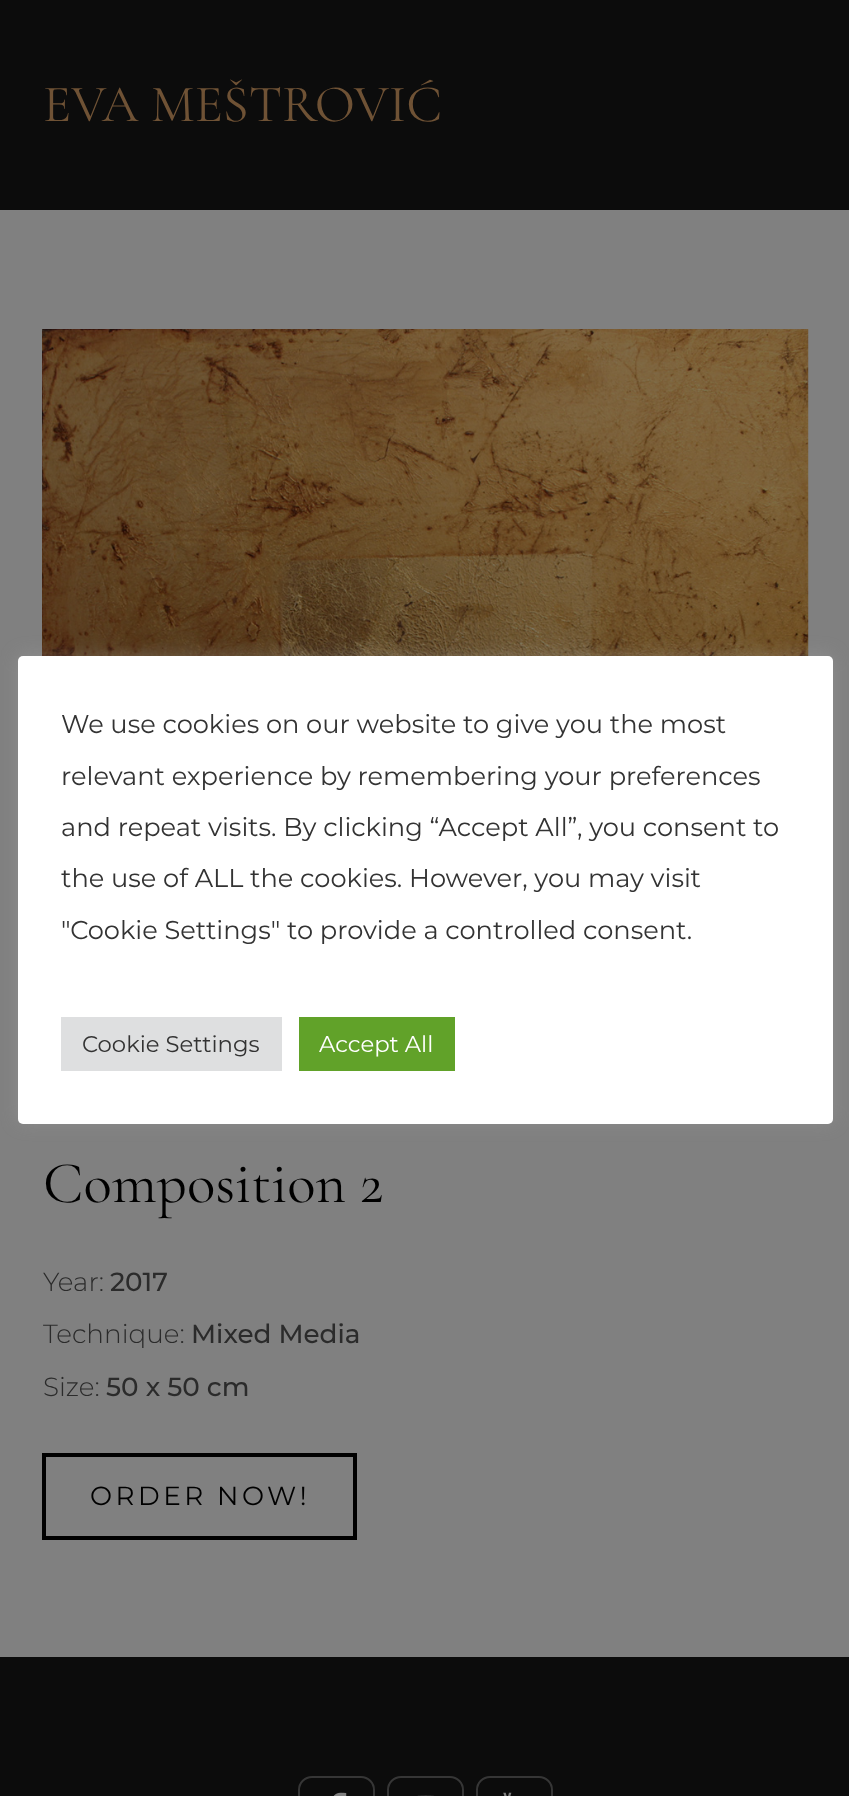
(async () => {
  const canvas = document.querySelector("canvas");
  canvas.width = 849;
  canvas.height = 1796;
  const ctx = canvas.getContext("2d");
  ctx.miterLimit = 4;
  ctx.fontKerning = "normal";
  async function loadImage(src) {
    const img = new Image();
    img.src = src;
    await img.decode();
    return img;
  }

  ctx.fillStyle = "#0c0c0c";
  ctx.fillRect(0, 0, 849, 1796);
  ctx.fillStyle = "#808080";
  ctx.fillRect(0, 210, 849, 1447);
  ctx.drawImage(await loadImage("img/1.png"), 42, 329, 767, 327);
  ctx.strokeStyle = "#000000";
  ctx.lineWidth = 4;
  ctx.strokeRect(44, 1455, 311, 83);
  ctx.beginPath();
  ctx.roundRect(299, 1777, 75, 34, 13);
  ctx.strokeStyle = "#363636";
  ctx.lineWidth = 2;
  ctx.stroke();
  ctx.drawImage(await loadImage("img/2.png"), 333, 1792, 14, 4);
  ctx.beginPath();
  ctx.roundRect(388, 1777, 75, 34, 13);
  ctx.stroke();
  ctx.drawImage(await loadImage("img/3.png"), 417, 1795, 17, 1);
  ctx.beginPath();
  ctx.roundRect(477, 1777, 75, 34, 13);
  ctx.stroke();
  ctx.drawImage(await loadImage("img/4.png"), 503, 1792, 9, 4);
  ctx.fillStyle = "rgba(172, 171, 171, 0.3)";
  ctx.filter = "blur(9px)";
  ctx.beginPath();
  ctx.roundRect(18, 655, 815, 467, 5);
  ctx.fill();
  ctx.filter = "none";
  ctx.fillStyle = "#ffffff";
  ctx.beginPath();
  ctx.roundRect(18, 656, 815, 468, 5);
  ctx.fill();
  ctx.fillStyle = "#dedfe0";
  ctx.fillRect(61, 1017, 221, 54);
  ctx.fillStyle = "#61a229";
  ctx.fillRect(299, 1017, 156, 54);
  ctx.font = "52.5px Cormorant Garamond";
  ctx.fillStyle = "#6f5235";
  ctx.fillText("EVA MEŠTROVIĆ", 43, 121);
  ctx.font = "59px Cormorant Garamond";
  ctx.fillStyle = "#000000";
  ctx.fillText("Composition 2", 43, 1202);
  ctx.font = "300 26.25px Montserrat";
  ctx.fillStyle = "#2b2b2b";
  ctx.fillText("Year:", 43, 1291);
  ctx.font = "500 26.25px Montserrat";
  ctx.fillText("2017", 110, 1291);
  ctx.font = "300 26.25px Montserrat";
  ctx.fillText("Technique:", 43, 1343);
  ctx.font = "500 26.25px Montserrat";
  ctx.fillText("Mixed Media", 191, 1343);
  ctx.font = "300 26.25px Montserrat";
  ctx.fillText("Size:", 43, 1396);
  ctx.font = "500 26.25px Montserrat";
  ctx.fillText("50 x 50 cm", 106, 1396);
  ctx.letterSpacing = "3.5px";
  ctx.font = "26.25px Montserrat";
  ctx.fillStyle = "#000000";
  ctx.fillText("ORDER NOW!", 90, 1505);
  ctx.letterSpacing = "0px";
  ctx.font = "25.7px Montserrat";
  ctx.fillStyle = "#333333";
  for (const [text, x, y] of [
    ["We use cookies on our website to give you the most", 61, 733],
    ["relevant experience by remembering your preferences", 61, 785],
    ["and repeat visits. By clicking “Accept All”, you consent to", 61, 836],
    ["the use of ALL the cookies. However, you may visit", 61, 887],
    ["\"Cookie Settings\" to provide a controlled consent.", 61, 939],
  ]) {
    ctx.fillText(text, x, y);
  }
  ctx.font = "22.75px Montserrat";
  ctx.fillText("Cookie Settings", 82, 1052);
  ctx.fillStyle = "#ffffff";
  ctx.fillText("Accept All", 319, 1052);
})();
